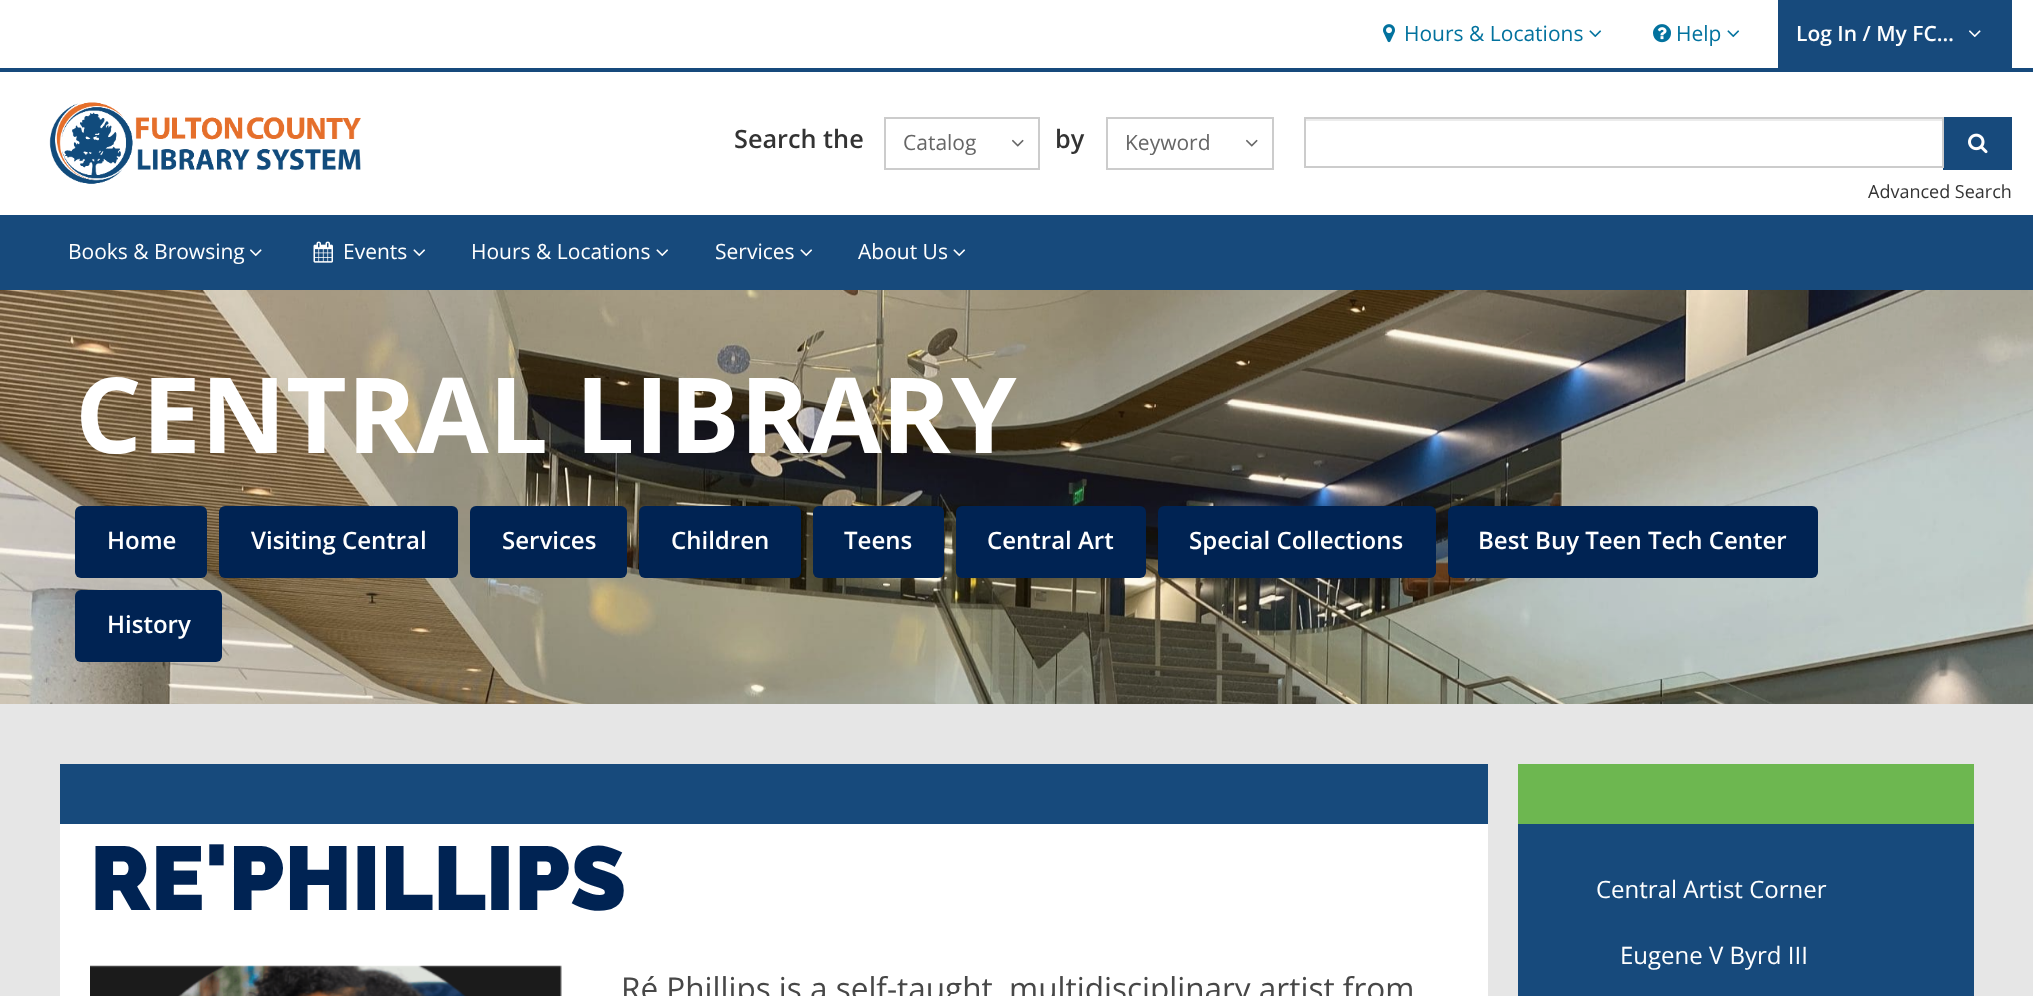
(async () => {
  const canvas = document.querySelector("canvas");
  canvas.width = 2033;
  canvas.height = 996;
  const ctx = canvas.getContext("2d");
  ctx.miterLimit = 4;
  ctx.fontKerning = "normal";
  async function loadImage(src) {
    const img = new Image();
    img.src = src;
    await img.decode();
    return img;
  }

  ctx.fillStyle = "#ffffff";
  ctx.fillRect(0, 0, 2033, 996);
  ctx.fillStyle = "#174a7c";
  ctx.fillRect(0, 68, 2033, 4);
  ctx.drawImage(await loadImage("img/1.png"), 1383, 24, 12, 19);
  ctx.drawImage(await loadImage("img/2.png"), 1589, 30, 13, 8);
  ctx.drawImage(await loadImage("img/3.png"), 1653, 24, 18, 19);
  ctx.drawImage(await loadImage("img/2.png"), 1727, 30, 13, 8);
  ctx.fillRect(1778, 0, 234, 68);
  ctx.drawImage(await loadImage("img/4.png"), 1969, 30, 12, 8);
  ctx.drawImage(await loadImage("img/5.png"), 49, 102, 312, 82);
  ctx.strokeStyle = "#cccccc";
  ctx.lineWidth = 2;
  ctx.strokeRect(885, 118, 154, 51);
  ctx.drawImage(await loadImage("img/6.png"), 1012, 139, 12, 8);
  ctx.strokeRect(1107, 118, 166, 51);
  ctx.drawImage(await loadImage("img/6.png"), 1246, 139, 12, 8);
  ctx.fillStyle = "#ececec";
  ctx.fillRect(1305, 119, 638, 2);
  ctx.fillStyle = "#174a7c";
  ctx.fillRect(1943, 117, 69, 53);
  ctx.strokeRect(1305, 118, 638, 49);
  ctx.drawImage(await loadImage("img/7.png"), 1968, 133, 20, 21);
  ctx.fillRect(0, 215, 2033, 75);
  ctx.drawImage(await loadImage("img/4.png"), 250, 249, 12, 8);
  ctx.drawImage(await loadImage("img/8.png"), 313, 241, 20, 22);
  ctx.drawImage(await loadImage("img/9.png"), 413, 249, 13, 8);
  ctx.drawImage(await loadImage("img/9.png"), 656, 249, 13, 8);
  ctx.drawImage(await loadImage("img/9.png"), 800, 249, 13, 8);
  ctx.drawImage(await loadImage("img/9.png"), 953, 249, 13, 8);
  ctx.drawImage(await loadImage("img/10.png"), 0, 290, 2033, 414);
  ctx.fillStyle = "#002353";
  ctx.beginPath();
  ctx.roundRect(75, 506, 132, 72, 6);
  ctx.fill();
  ctx.beginPath();
  ctx.roundRect(219, 506, 239, 72, 6);
  ctx.fill();
  ctx.beginPath();
  ctx.roundRect(470, 506, 157, 72, 6);
  ctx.fill();
  ctx.beginPath();
  ctx.roundRect(639, 506, 162, 72, 6);
  ctx.fill();
  ctx.beginPath();
  ctx.roundRect(813, 506, 131, 72, 6);
  ctx.fill();
  ctx.beginPath();
  ctx.roundRect(956, 506, 190, 72, 6);
  ctx.fill();
  ctx.beginPath();
  ctx.roundRect(1158, 506, 278, 72, 6);
  ctx.fill();
  ctx.beginPath();
  ctx.roundRect(1448, 506, 370, 72, 6);
  ctx.fill();
  ctx.beginPath();
  ctx.roundRect(75, 590, 147, 72, 6);
  ctx.fill();
  for (const [x, y, w, h, color] of [
    [0, 704, 2033, 292, "#e6e6e6"],
    [60, 824, 1428, 172, "#ffffff"],
    [60, 764, 1428, 60, "#174a7c"],
  ]) {
    ctx.fillStyle = color;
    ctx.fillRect(x, y, w, h);
  }
  ctx.drawImage(await loadImage("img/11.png"), 90, 965, 472, 31);
  ctx.fillRect(1518, 824, 456, 172);
  ctx.fillStyle = "#6db750";
  ctx.fillRect(1518, 764, 456, 60);
  ctx.font = "21px Open Sans";
  ctx.fillStyle = "#02729e";
  ctx.fillText("Hours & Locations", 1404, 41);
  ctx.fillText("Help", 1676, 41);
  ctx.font = "600 21px Open Sans";
  ctx.fillStyle = "#ffffff";
  ctx.fillText("Log In / My FC…", 1796, 41);
  ctx.font = "600 25.25px Open Sans";
  ctx.fillStyle = "#333333";
  ctx.fillText("Search the", 734, 148);
  ctx.font = "21px Open Sans";
  ctx.fillStyle = "#666666";
  ctx.fillText("Catalog", 903, 150);
  ctx.font = "600 25.25px Open Sans";
  ctx.fillStyle = "#333333";
  ctx.fillText("by", 1055, 148);
  ctx.font = "21px Open Sans";
  ctx.fillStyle = "#666666";
  ctx.fillText("Keyword", 1125, 150);
  ctx.font = "18px Open Sans";
  ctx.fillStyle = "#333333";
  ctx.fillText("Advanced Search", 1868, 198);
  ctx.font = "21px Open Sans";
  ctx.fillStyle = "#ffffff";
  for (const [text, x, y] of [
    ["Books & Browsing", 68, 259],
    ["Events", 343, 259],
    ["Hours & Locations", 471, 259],
    ["Services", 715, 259],
    ["About Us", 858, 259],
  ]) {
    ctx.fillText(text, x, y);
  }
  ctx.font = "bold 105px Open Sans";
  ctx.fillText("CENTRAL LIBRARY", 75, 453);
  ctx.font = "600 24px Open Sans";
  for (const [text, x, y] of [
    ["Home", 107, 549],
    ["Visiting Central", 251, 549],
    ["Services", 502, 549],
    ["Children", 671, 549],
    ["Teens", 844, 549],
    ["Central Art", 987, 549],
    ["Special Collections", 1189, 549],
    ["Best Buy Teen Tech Center", 1478, 549],
    ["History", 107, 633],
  ]) {
    ctx.fillText(text, x, y);
  }
  ctx.font = "900 90px Raleway";
  ctx.fillStyle = "#002353";
  ctx.fillText("RE'PHILLIPS", 90, 910);
  ctx.font = "31.5px Open Sans";
  ctx.fillStyle = "#474747";
  ctx.fillText("Ré Phillips is a self-taught, multidisciplinary artist from", 621, 1000);
  ctx.font = "24px Open Sans";
  ctx.fillStyle = "#ffffff";
  ctx.fillText("Central Artist Corner", 1596, 898);
  ctx.fillText("Eugene V Byrd III", 1620, 964);
})();
